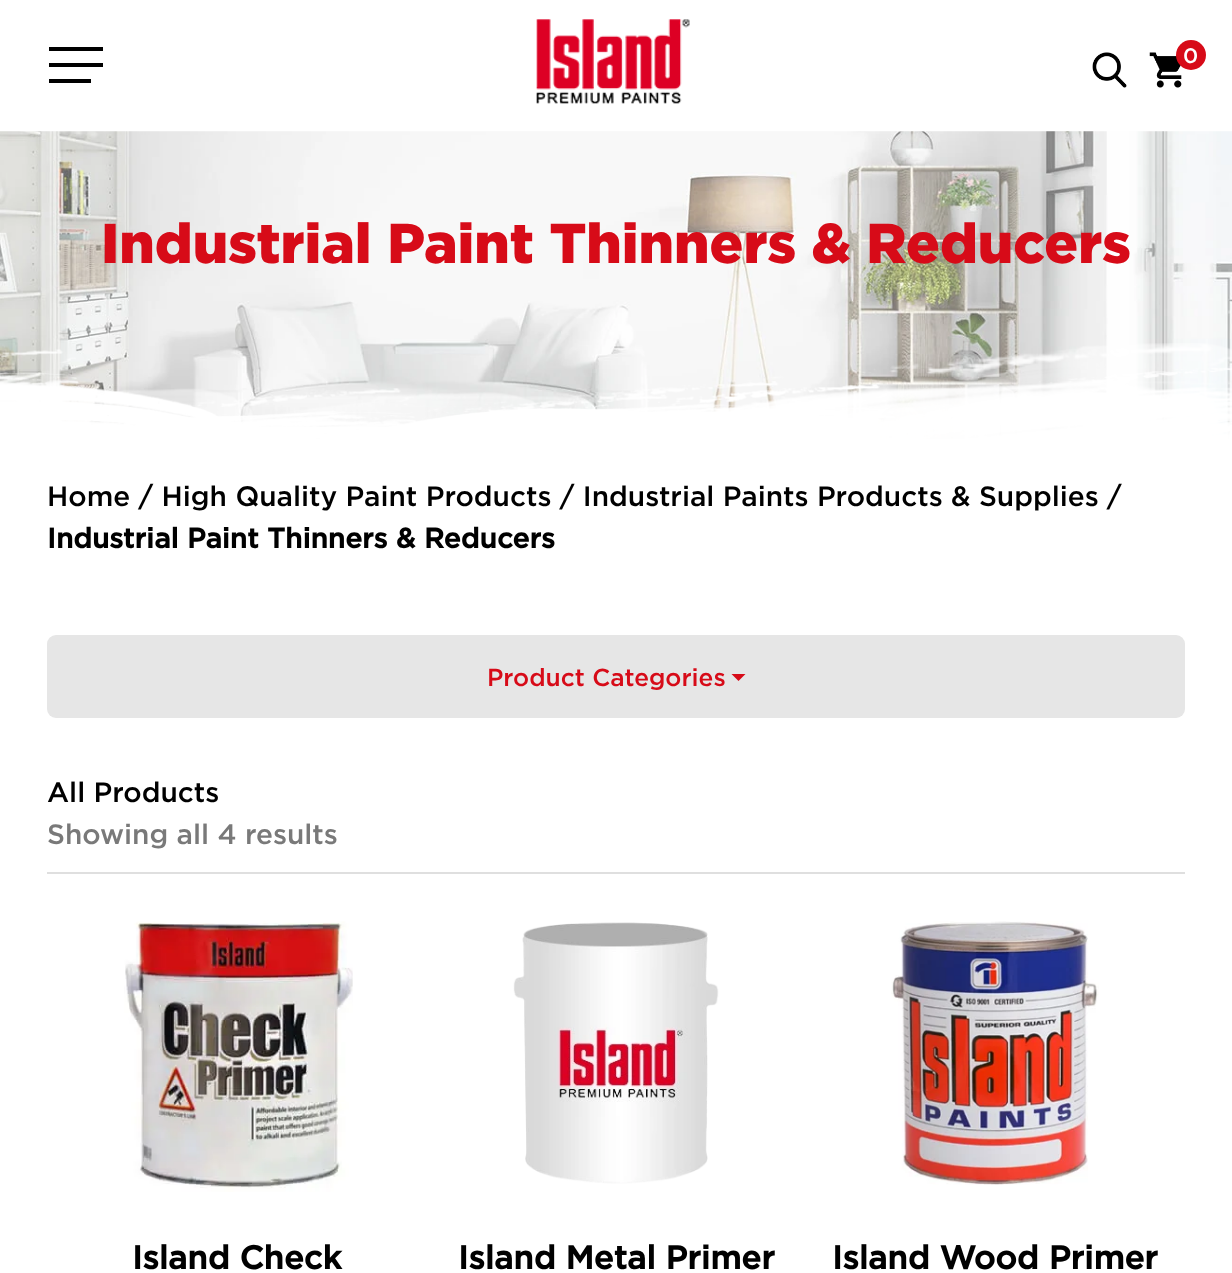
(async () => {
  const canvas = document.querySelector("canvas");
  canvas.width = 1232;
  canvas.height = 1273;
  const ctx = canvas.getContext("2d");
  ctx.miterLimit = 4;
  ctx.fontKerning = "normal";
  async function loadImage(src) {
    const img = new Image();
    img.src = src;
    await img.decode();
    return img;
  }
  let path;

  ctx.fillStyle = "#ffffff";
  ctx.fillRect(0, 0, 1232, 1273);
  for (const [x, y, w, h, color] of [
    [49, 47, 54, 4, "#000000"],
    [49, 63, 54, 4, "#000000"],
    [49, 79, 42, 4, "#000000"],
  ]) {
    ctx.fillStyle = color;
    ctx.fillRect(x, y, w, h);
  }
  ctx.drawImage(await loadImage("img/1.png"), 536, 19, 154, 85);
  ctx.drawImage(await loadImage("img/2.png"), 1092, 52, 35, 36);
  ctx.drawImage(await loadImage("img/3.png"), 1149, 52, 33, 36);
  ctx.fillStyle = "#d70b18";
  ctx.beginPath();
  ctx.arc(1191, 55, 15, 0, Math.PI * 2);
  ctx.fill();
  ctx.drawImage(await loadImage("img/4.png"), 0, 131, 1232, 309);
  ctx.drawImage(await loadImage("img/5.png"), 0, 343, 1232, 97);
  ctx.fillStyle = "#e6e6e6";
  ctx.beginPath();
  ctx.roundRect(47, 635, 1138, 83, 9);
  ctx.fill();
  ctx.fillStyle = "#d70b18";
  path = new Path2D("M731.5 674H745.5L738.5 681Z");
  ctx.fill(path);
  ctx.fillStyle = "#dfdfdf";
  ctx.fillRect(47, 872, 1138, 2);
  ctx.drawImage(await loadImage("img/6.png"), 124, 921, 229, 271);
  ctx.drawImage(await loadImage("img/7.png"), 513, 922, 206, 262);
  ctx.drawImage(await loadImage("img/8.png"), 891, 921, 208, 264);
  ctx.font = "500 21px Gotham";
  ctx.fillStyle = "#ffffff";
  ctx.fillText("0", 1183, 63);
  ctx.font = "900 56px Gotham";
  ctx.fillStyle = "#d70b18";
  ctx.fillText("Industrial Paint Thinners & Reducers", 101, 263);
  ctx.font = "500 28px Gotham";
  ctx.fillStyle = "#000000";
  ctx.fillText("Home / High Quality Paint Products / Industrial Paints Products & Supplies /", 47, 506);
  ctx.font = "bold 28px Gotham";
  ctx.fillText("Industrial Paint Thinners & Reducers", 47, 548);
  ctx.font = "500 24.5px Gotham";
  ctx.fillStyle = "#d70b18";
  ctx.fillText("Product Categories", 487, 686);
  ctx.font = "500 28px Gotham";
  ctx.fillStyle = "#000000";
  ctx.fillText("All Products", 47, 802);
  ctx.fillStyle = "#797979";
  ctx.fillText("Showing all 4 results", 47, 844);
  ctx.font = "bold 32.75px Gotham";
  ctx.fillStyle = "#000000";
  for (const [text, x, y] of [
    ["Island Check", 132, 1269],
    ["Island Metal Primer", 458, 1269],
    ["Island Wood Primer", 832, 1269],
  ]) {
    ctx.fillText(text, x, y);
  }
})();
